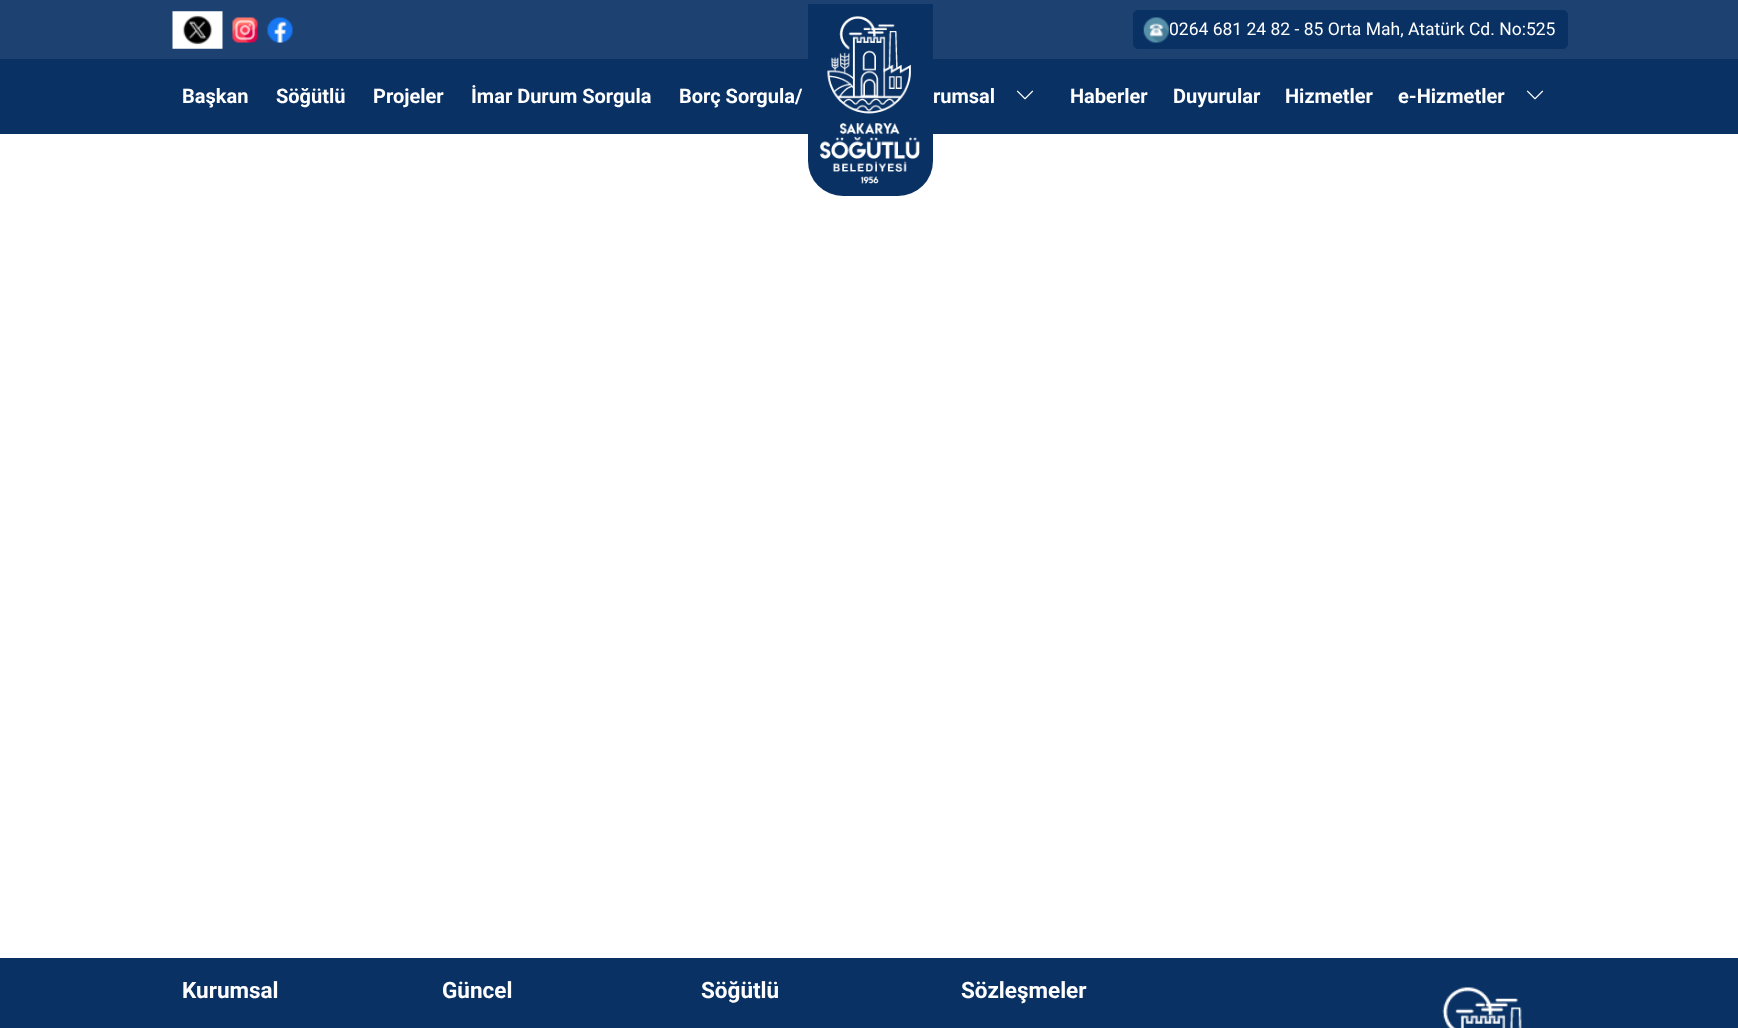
(async () => {
  const canvas = document.querySelector("canvas");
  canvas.width = 1738;
  canvas.height = 1028;
  const ctx = canvas.getContext("2d");
  ctx.miterLimit = 4;
  ctx.fontKerning = "normal";
  async function loadImage(src) {
    const img = new Image();
    img.src = src;
    await img.decode();
    return img;
  }

  ctx.fillStyle = "#ffffff";
  ctx.fillRect(0, 0, 1738, 1028);
  ctx.fillStyle = "#093164";
  ctx.fillRect(0, 59, 1738, 75);
  ctx.fillStyle = "#1d4170";
  ctx.fillRect(0, 0, 1738, 59);
  ctx.drawImage(await loadImage("img/1.png"), 172, 11, 51, 38);
  ctx.drawImage(await loadImage("img/2.png"), 232, 17, 26, 26);
  ctx.drawImage(await loadImage("img/3.png"), 267, 17, 26, 26);
  ctx.fillStyle = "#093164";
  ctx.beginPath();
  ctx.roundRect(1133.5, 10.5, 434, 38, 4.5);
  ctx.fill();
  ctx.strokeStyle = "#093164";
  ctx.stroke();
  ctx.drawImage(await loadImage("img/4.png"), 1143, 17, 26, 26);
  ctx.beginPath();
  ctx.roundRect(808, 4, 125, 192, [0, 0, 35, 35]);
  ctx.fill();
  ctx.drawImage(await loadImage("img/5.png"), 820, 16, 100, 168);
  ctx.drawImage(await loadImage("img/6.png"), 1016, 90, 18, 10);
  ctx.drawImage(await loadImage("img/6.png"), 1526, 90, 18, 10);
  ctx.fillRect(0, 958, 1738, 70);
  ctx.drawImage(await loadImage("img/7.png"), 1442, 987, 80, 41);
  ctx.font = "17.5px Roboto";
  ctx.fillStyle = "#ffffff";
  ctx.fillText("0264 681 24 82 - 85 Orta Mah, Atatürk Cd. No:525", 1169, 35);
  ctx.font = "bold 20px Roboto";
  for (const [text, x, y] of [
    ["Başkan", 182, 103],
    ["Söğütlü", 276, 103],
    ["Projeler", 373, 103],
    ["İmar Durum Sorgula", 471, 103],
    ["Borç Sorgula/", 679, 103],
    ["rumsal", 933, 103],
    ["Haberler", 1070, 103],
    ["Duyurular", 1173, 103],
    ["Hizmetler", 1285, 103],
    ["e-Hizmetler", 1398, 103],
  ]) {
    ctx.fillText(text, x, y);
  }
  ctx.font = "bold 22.5px Roboto";
  for (const [text, x, y] of [
    ["Kurumsal", 182, 998],
    ["Güncel", 442, 998],
    ["Söğütlü", 701, 998],
    ["Sözleşmeler", 961, 998],
  ]) {
    ctx.fillText(text, x, y);
  }
})();
